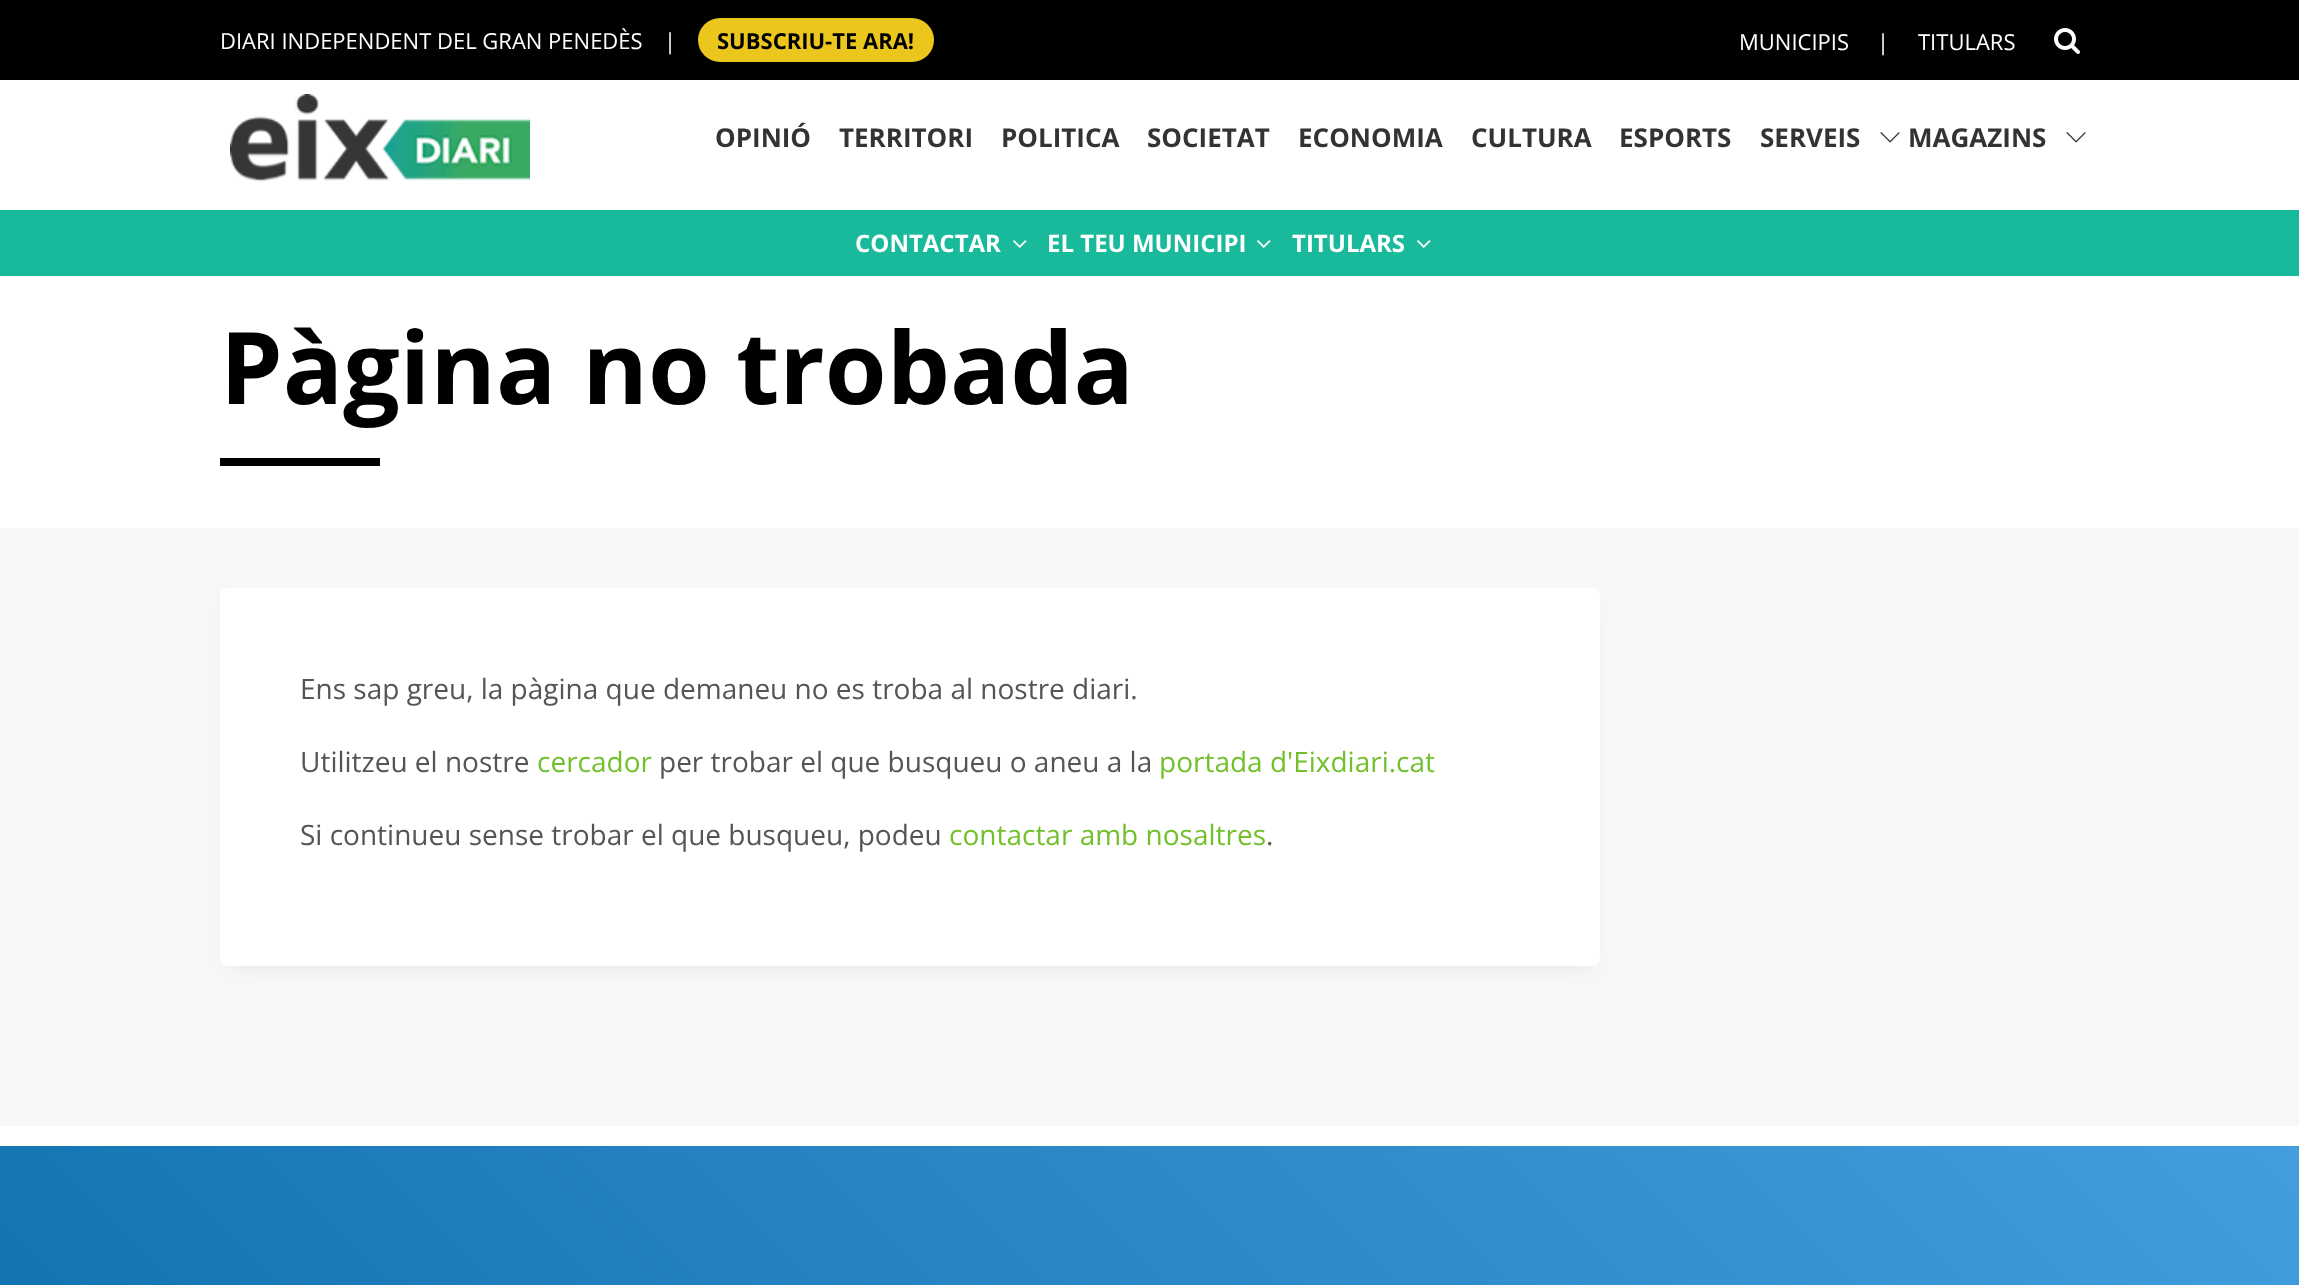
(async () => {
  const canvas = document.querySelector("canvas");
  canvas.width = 2299;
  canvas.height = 1285;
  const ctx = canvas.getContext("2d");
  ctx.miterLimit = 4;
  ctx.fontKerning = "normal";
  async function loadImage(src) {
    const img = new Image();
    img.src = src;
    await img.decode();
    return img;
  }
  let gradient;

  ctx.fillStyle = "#ffffff";
  ctx.fillRect(0, 0, 2299, 1285);
  ctx.fillStyle = "#000000";
  ctx.fillRect(0, 0, 2299, 80);
  ctx.fillStyle = "#ebc71d";
  ctx.beginPath();
  ctx.roundRect(698, 18, 236, 44, 22);
  ctx.fill();
  ctx.drawImage(await loadImage("img/1.png"), 2054, 28, 26, 26);
  ctx.drawImage(await loadImage("img/2.png"), 230, 94, 300, 88);
  ctx.drawImage(await loadImage("img/3.png"), 1880, 132, 20, 11);
  ctx.drawImage(await loadImage("img/3.png"), 2066, 132, 20, 11);
  ctx.fillStyle = "#18ba9b";
  ctx.fillRect(0, 210, 2299, 66);
  ctx.drawImage(await loadImage("img/4.png"), 1013, 240, 14, 8);
  ctx.drawImage(await loadImage("img/4.png"), 1257, 240, 14, 8);
  ctx.drawImage(await loadImage("img/4.png"), 1417, 240, 14, 8);
  ctx.fillStyle = "#000000";
  ctx.fillRect(220, 458, 160, 8);
  ctx.fillStyle = "#f7f7f7";
  ctx.fillRect(0, 528, 2299, 598);
  ctx.fillStyle = "rgba(0, 0, 0, 0.1)";
  ctx.filter = "blur(10px)";
  ctx.beginPath();
  ctx.rect(232, 610, 1356, 354);
  ctx.fill();
  ctx.filter = "none";
  ctx.fillStyle = "#ffffff";
  ctx.beginPath();
  ctx.roundRect(220, 588, 1380, 378, 8);
  ctx.fill();
  gradient = ctx.createLinearGradient(2017, 863, 283, 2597);
  gradient.addColorStop(0, "#429edc");
  gradient.addColorStop(1, "#00629e");
  ctx.fillStyle = gradient;
  ctx.fillRect(0, 1146, 2299, 139);
  ctx.font = "22px Open Sans";
  ctx.fillStyle = "#ffffff";
  ctx.fillText("DIARI INDEPENDENT DEL GRAN PENEDÈS", 220, 49);
  ctx.fillText("|", 664, 49);
  ctx.font = "bold 22px Open Sans";
  ctx.fillStyle = "#000000";
  ctx.fillText("SUBSCRIU-TE ARA!", 717, 49);
  ctx.font = "22px Open Sans";
  ctx.fillStyle = "#ffffff";
  for (const [text, x, y] of [
    ["MUNICIPIS", 1739, 50],
    ["|", 1877, 50],
    ["TITULARS", 1918, 50],
  ]) {
    ctx.fillText(text, x, y);
  }
  ctx.font = "bold 26px Open Sans";
  ctx.fillStyle = "#333333";
  for (const [text, x, y] of [
    ["OPINIÓ", 715, 147],
    ["TERRITORI", 839, 147],
    ["POLITICA", 1001, 147],
    ["SOCIETAT", 1147, 147],
    ["ECONOMIA", 1298, 147],
    ["CULTURA", 1471, 147],
    ["ESPORTS", 1619, 147],
    ["SERVEIS", 1760, 147],
    ["MAGAZINS", 1908, 147],
  ]) {
    ctx.fillText(text, x, y);
  }
  ctx.font = "bold 24px Open Sans";
  ctx.fillStyle = "#ffffff";
  for (const [text, x, y] of [
    ["CONTACTAR", 855, 252],
    ["EL TEU MUNICIPI", 1047, 252],
    ["TITULARS", 1292, 252],
  ]) {
    ctx.fillText(text, x, y);
  }
  ctx.font = "bold 100px Open Sans";
  ctx.fillStyle = "#000000";
  ctx.fillText("Pàgina no trobada", 220, 404);
  ctx.font = "28px Open Sans";
  ctx.fillStyle = "#555555";
  ctx.fillText("Ens sap greu, la pàgina que demaneu no es troba al nostre diari.", 300, 699);
  ctx.fillText("Utilitzeu el nostre", 300, 772);
  ctx.fillStyle = "#72c02c";
  ctx.fillText("cercador", 537, 772);
  ctx.fillStyle = "#555555";
  ctx.fillText("per trobar el que busqueu o aneu a la", 659, 772);
  ctx.fillStyle = "#72c02c";
  ctx.fillText("portada d'Eixdiari.cat", 1159, 772);
  ctx.fillStyle = "#555555";
  ctx.fillText("Si continueu sense trobar el que busqueu, podeu", 300, 845);
  ctx.fillStyle = "#72c02c";
  ctx.fillText("contactar amb nosaltres", 949, 845);
  ctx.fillStyle = "#555555";
  ctx.fillText(".", 1266, 845);
})();
